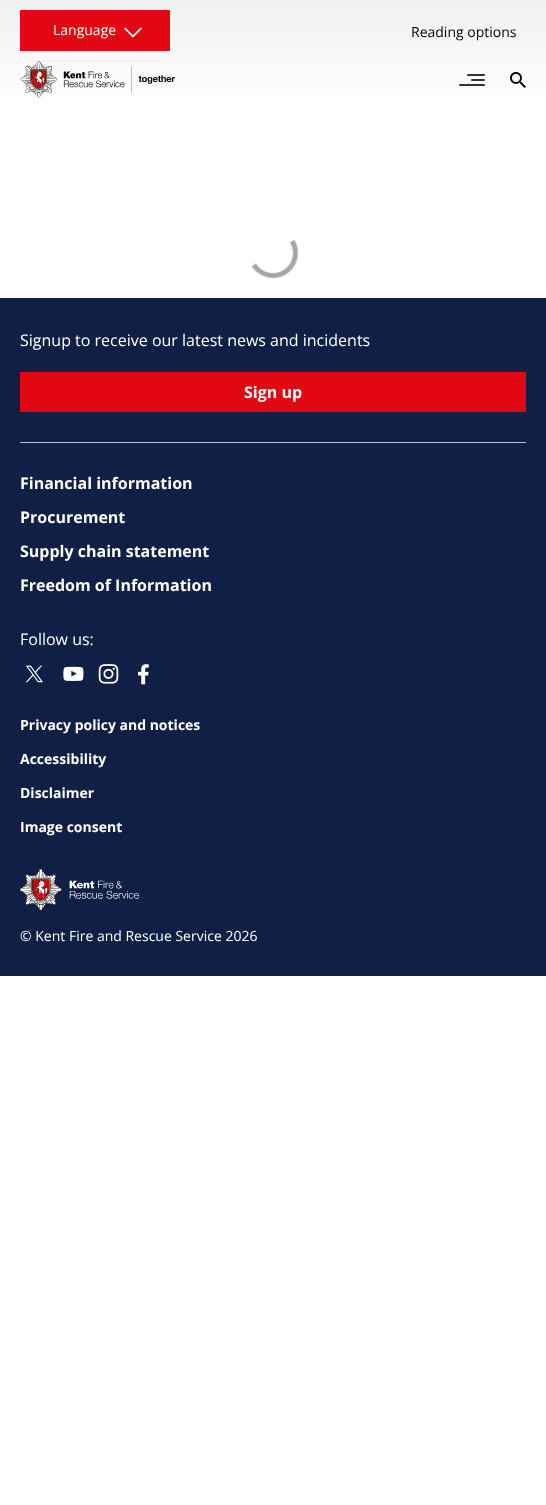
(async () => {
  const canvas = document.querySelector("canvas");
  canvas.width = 546;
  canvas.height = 1505;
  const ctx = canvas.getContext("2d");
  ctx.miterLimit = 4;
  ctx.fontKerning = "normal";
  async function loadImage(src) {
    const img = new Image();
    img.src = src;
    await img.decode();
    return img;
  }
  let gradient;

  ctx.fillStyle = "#ffffff";
  ctx.fillRect(0, 0, 546, 1505);
  gradient = ctx.createLinearGradient(273, 0, 273, 108);
  gradient.addColorStop(0, "#f0f0f0");
  gradient.addColorStop(1, "#ffffff");
  ctx.fillStyle = gradient;
  ctx.fillRect(0, 0, 546, 90);
  ctx.fillStyle = "#e30613";
  ctx.fillRect(20, 10, 150, 41);
  ctx.drawImage(await loadImage("img/1.png"), 124, 27, 18, 11);
  ctx.drawImage(await loadImage("img/2.png"), 20, 61, 155, 37);
  ctx.fillStyle = "#333333";
  ctx.beginPath();
  ctx.roundRect(467, 74, 18, 2, 1);
  ctx.fill();
  ctx.beginPath();
  ctx.roundRect(471, 79, 14, 2, 1);
  ctx.fill();
  ctx.beginPath();
  ctx.roundRect(459, 84, 26, 2, 1);
  ctx.fill();
  ctx.drawImage(await loadImage("img/3.png"), 510, 72, 16, 16);
  ctx.drawImage(await loadImage("img/4.png"), 251, 239, 48, 40);
  for (const [x, y, w, h, color] of [
    [0, 298, 546, 678, "#101f45"],
    [20, 372, 506, 40, "#e30613"],
    [20, 442, 506, 1, "#bfc1d4"],
  ]) {
    ctx.fillStyle = color;
    ctx.fillRect(x, y, w, h);
  }
  ctx.drawImage(await loadImage("img/5.png"), 25, 665, 18, 18);
  ctx.drawImage(await loadImage("img/6.png"), 63, 666, 21, 15);
  ctx.drawImage(await loadImage("img/7.png"), 98, 664, 21, 20);
  ctx.drawImage(await loadImage("img/8.png"), 138, 664, 11, 21);
  ctx.drawImage(await loadImage("img/9.png"), 20, 869, 119, 42);
  ctx.font = "14px Open Sans";
  ctx.fillStyle = "#ffffff";
  ctx.fillText("Language", 53, 35);
  ctx.fillStyle = "#000000";
  ctx.fillText("Reading options", 411, 37);
  ctx.font = "16px Open Sans";
  ctx.fillStyle = "#ffffff";
  ctx.fillText("Signup to receive our latest news and incidents", 20, 346);
  ctx.font = "bold 16px Open Sans";
  for (const [text, x, y] of [
    ["Sign up", 244, 398],
    ["Financial information", 20, 489],
    ["Procurement", 20, 523],
    ["Supply chain statement", 20, 557],
    ["Freedom of Information", 20, 591],
  ]) {
    ctx.fillText(text, x, y);
  }
  ctx.font = "16px Open Sans";
  ctx.fillText("Follow us:", 20, 645);
  ctx.font = "bold 14px Open Sans";
  for (const [text, x, y] of [
    ["Privacy policy and notices", 20, 730],
    ["Accessibility", 20, 764],
    ["Disclaimer", 20, 798],
    ["Image consent", 20, 832],
  ]) {
    ctx.fillText(text, x, y);
  }
  ctx.font = "14px Open Sans";
  ctx.fillText("© Kent Fire and Rescue Service 2026", 20, 941);
})();
